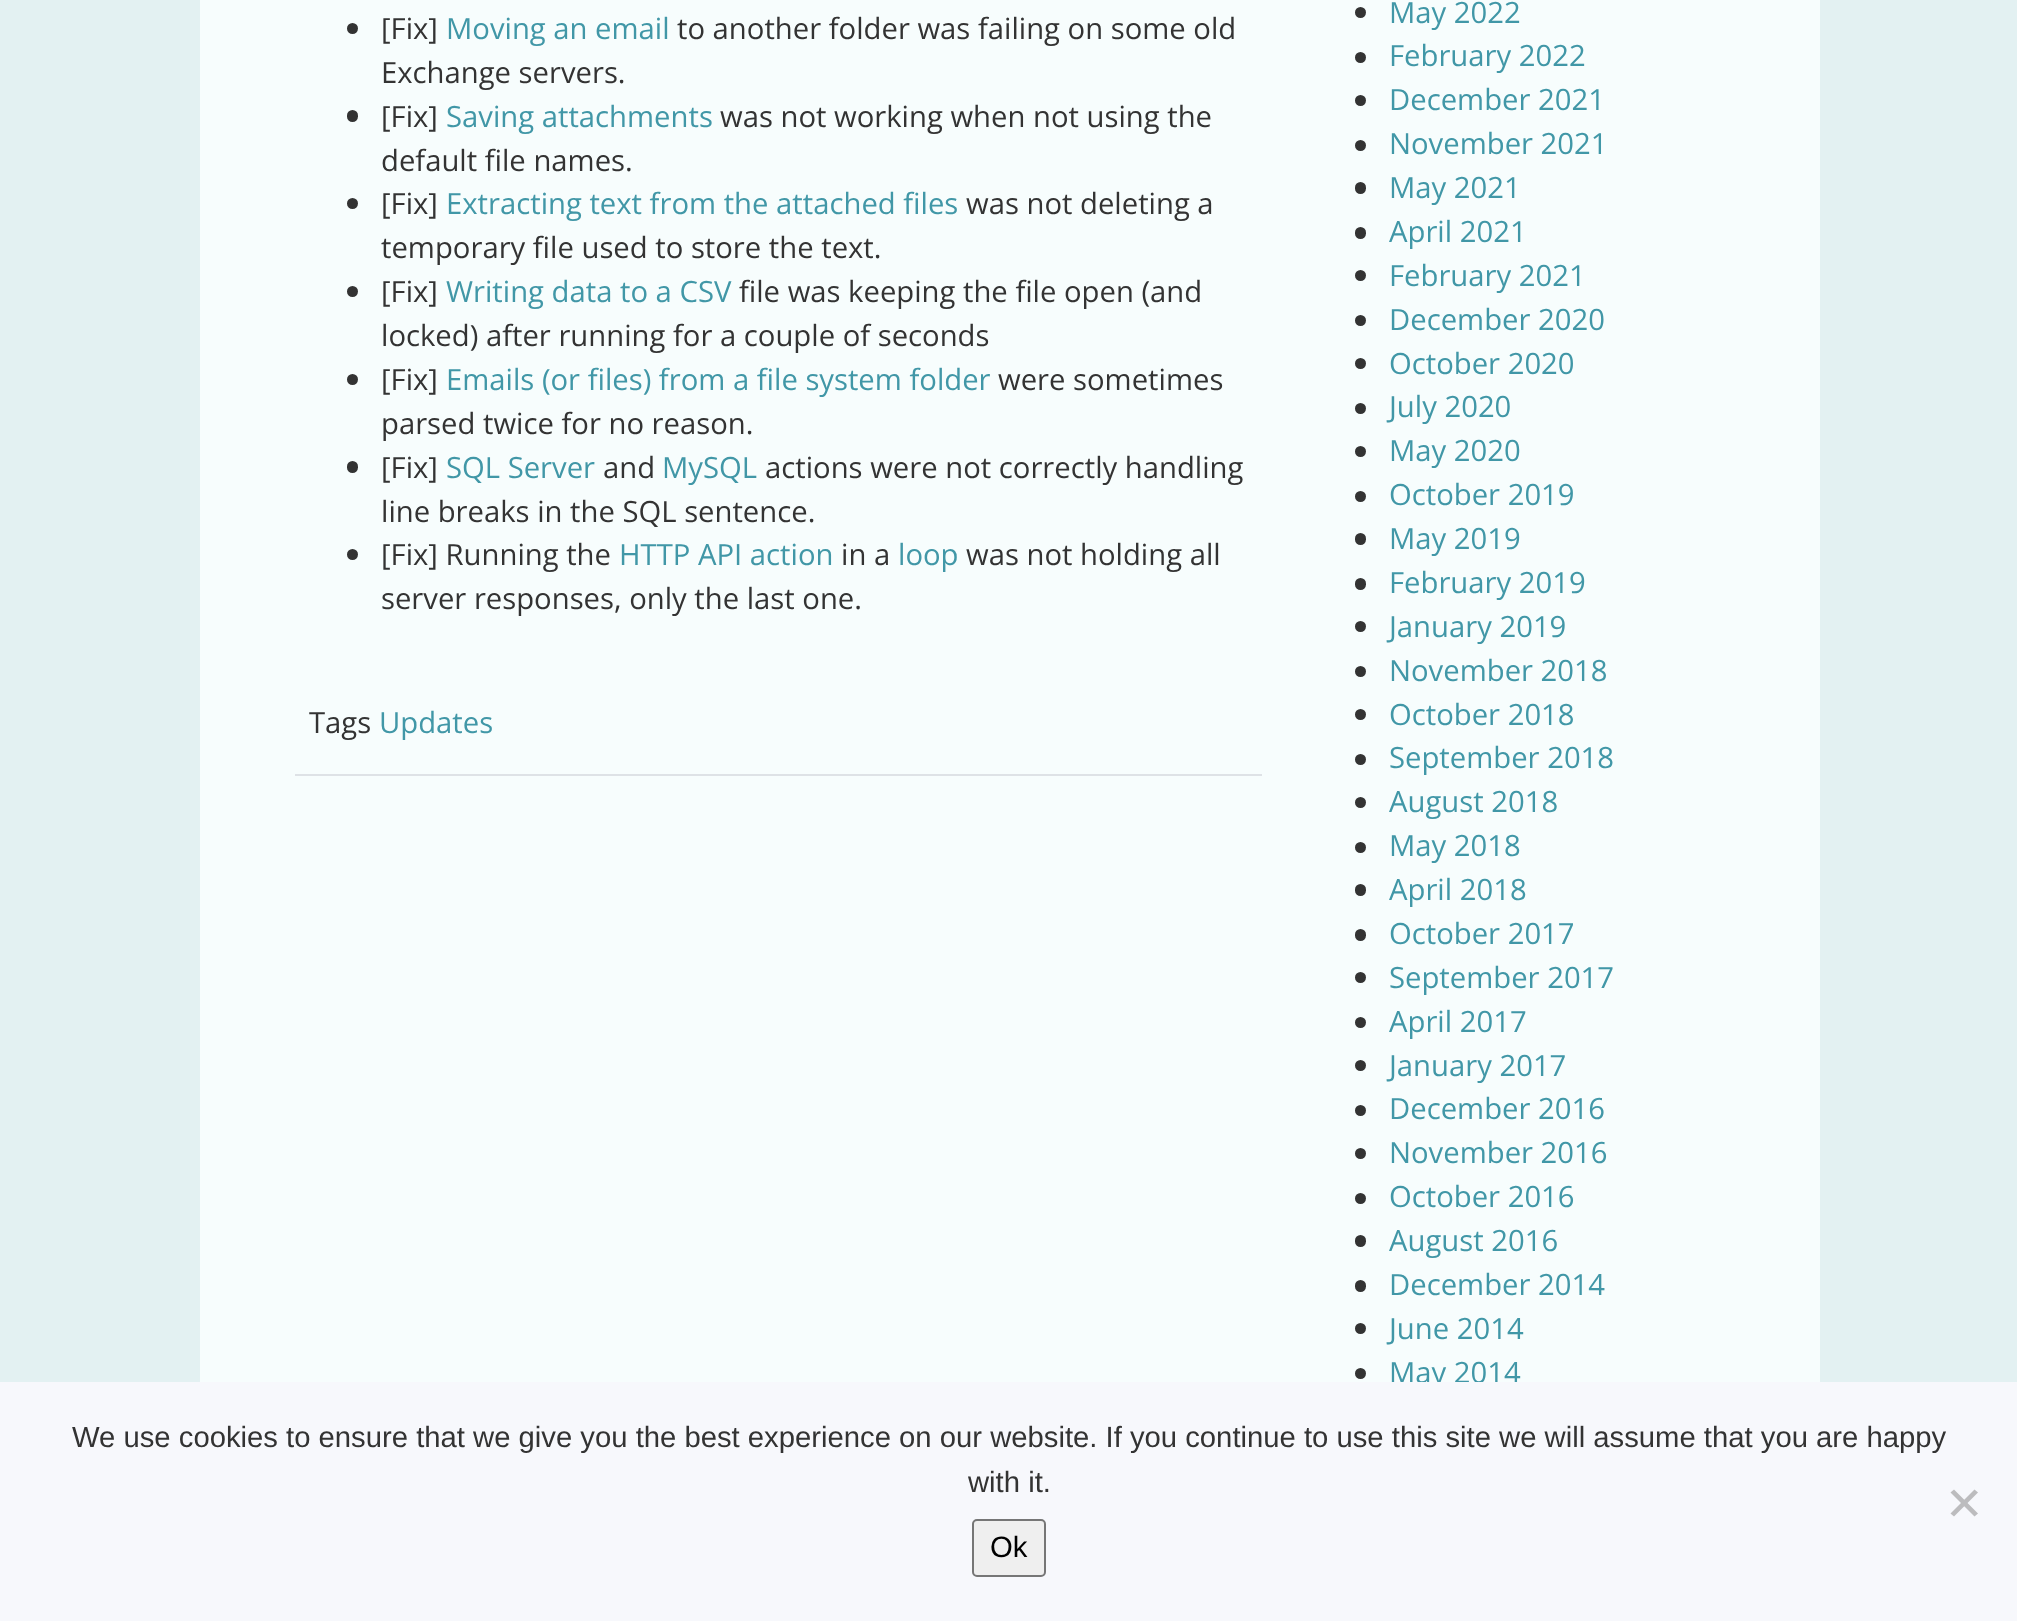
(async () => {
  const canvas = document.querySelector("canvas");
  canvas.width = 2017;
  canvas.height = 1621;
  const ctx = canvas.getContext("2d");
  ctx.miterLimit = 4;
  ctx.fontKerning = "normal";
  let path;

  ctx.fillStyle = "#e3f1f2";
  ctx.fillRect(0, 0, 2017, 1621);
  ctx.fillStyle = "#f7fdfd";
  ctx.fillRect(200, 0, 1620, 1382);
  ctx.fillStyle = "#333333";
  ctx.beginPath();
  ctx.arc(352.5, 28.5, 5.5, 0, Math.PI * 2);
  ctx.fill();
  ctx.beginPath();
  ctx.roundRect(347, 110, 11, 12, 5.5);
  ctx.fill();
  ctx.beginPath();
  ctx.arc(352.5, 203.5, 5.5, 0, Math.PI * 2);
  ctx.fill();
  ctx.beginPath();
  ctx.arc(352.5, 291.5, 5.5, 0, Math.PI * 2);
  ctx.fill();
  ctx.beginPath();
  ctx.arc(352.5, 379.5, 5.5, 0, Math.PI * 2);
  ctx.fill();
  ctx.beginPath();
  ctx.roundRect(347, 461, 11, 12, 5.5);
  ctx.fill();
  ctx.beginPath();
  ctx.arc(352.5, 554.5, 5.5, 0, Math.PI * 2);
  ctx.fill();
  ctx.fillStyle = "#dee2e6";
  ctx.fillRect(295, 774, 967, 2);
  ctx.fillStyle = "#333333";
  ctx.beginPath();
  ctx.arc(1360.5, 12.5, 5.5, 0, Math.PI * 2);
  ctx.fill();
  ctx.beginPath();
  ctx.arc(1360.5, 57.5, 5.5, 0, Math.PI * 2);
  ctx.fill();
  ctx.beginPath();
  ctx.arc(1360.5, 100.5, 5.5, 0, Math.PI * 2);
  ctx.fill();
  ctx.beginPath();
  ctx.arc(1360.5, 145.5, 5.5, 0, Math.PI * 2);
  ctx.fill();
  ctx.beginPath();
  ctx.roundRect(1355, 182, 11, 12, 5.5);
  ctx.fill();
  ctx.beginPath();
  ctx.roundRect(1355, 227, 11, 12, 5.5);
  ctx.fill();
  ctx.beginPath();
  ctx.arc(1360.5, 275.5, 5.5, 0, Math.PI * 2);
  ctx.fill();
  ctx.beginPath();
  ctx.arc(1360.5, 320.5, 5.5, 0, Math.PI * 2);
  ctx.fill();
  ctx.beginPath();
  ctx.arc(1360.5, 363.5, 5.5, 0, Math.PI * 2);
  ctx.fill();
  ctx.beginPath();
  ctx.arc(1360.5, 408.5, 5.5, 0, Math.PI * 2);
  ctx.fill();
  ctx.beginPath();
  ctx.arc(1360.5, 451.5, 5.5, 0, Math.PI * 2);
  ctx.fill();
  ctx.beginPath();
  ctx.arc(1360.5, 496.5, 5.5, 0, Math.PI * 2);
  ctx.fill();
  ctx.beginPath();
  ctx.roundRect(1355, 533, 11, 12, 5.5);
  ctx.fill();
  ctx.beginPath();
  ctx.roundRect(1355, 578, 11, 12, 5.5);
  ctx.fill();
  ctx.beginPath();
  ctx.arc(1360.5, 626.5, 5.5, 0, Math.PI * 2);
  ctx.fill();
  ctx.beginPath();
  ctx.arc(1360.5, 671.5, 5.5, 0, Math.PI * 2);
  ctx.fill();
  ctx.beginPath();
  ctx.arc(1360.5, 714.5, 5.5, 0, Math.PI * 2);
  ctx.fill();
  ctx.beginPath();
  ctx.arc(1360.5, 759.5, 5.5, 0, Math.PI * 2);
  ctx.fill();
  ctx.beginPath();
  ctx.arc(1360.5, 802.5, 5.5, 0, Math.PI * 2);
  ctx.fill();
  ctx.beginPath();
  ctx.arc(1360.5, 847.5, 5.5, 0, Math.PI * 2);
  ctx.fill();
  ctx.beginPath();
  ctx.roundRect(1355, 884, 11, 12, 5.5);
  ctx.fill();
  ctx.beginPath();
  ctx.roundRect(1355, 929, 11, 12, 5.5);
  ctx.fill();
  ctx.beginPath();
  ctx.arc(1360.5, 977.5, 5.5, 0, Math.PI * 2);
  ctx.fill();
  ctx.beginPath();
  ctx.arc(1360.5, 1022.5, 5.5, 0, Math.PI * 2);
  ctx.fill();
  ctx.beginPath();
  ctx.arc(1360.5, 1065.5, 5.5, 0, Math.PI * 2);
  ctx.fill();
  ctx.beginPath();
  ctx.arc(1360.5, 1110.5, 5.5, 0, Math.PI * 2);
  ctx.fill();
  ctx.beginPath();
  ctx.arc(1360.5, 1153.5, 5.5, 0, Math.PI * 2);
  ctx.fill();
  ctx.beginPath();
  ctx.arc(1360.5, 1198.5, 5.5, 0, Math.PI * 2);
  ctx.fill();
  ctx.beginPath();
  ctx.roundRect(1355, 1235, 11, 12, 5.5);
  ctx.fill();
  ctx.beginPath();
  ctx.roundRect(1355, 1280, 11, 12, 5.5);
  ctx.fill();
  ctx.beginPath();
  ctx.arc(1360.5, 1328.5, 5.5, 0, Math.PI * 2);
  ctx.fill();
  ctx.beginPath();
  ctx.arc(1360.5, 1373.5, 5.5, 0, Math.PI * 2);
  ctx.fill();
  ctx.font = "29.25px Open Sans";
  ctx.fillText("[Fix]", 381, 39);
  ctx.fillStyle = "#4197a7";
  ctx.fillText("Moving an email", 446, 39);
  ctx.fillStyle = "#333333";
  for (const [text, x, y] of [
    ["to another folder was failing on some old", 677, 39],
    ["Exchange servers.", 381, 83],
    ["[Fix]", 381, 127],
  ]) {
    ctx.fillText(text, x, y);
  }
  ctx.fillStyle = "#4197a7";
  ctx.fillText("Saving attachments", 446, 127);
  ctx.fillStyle = "#333333";
  for (const [text, x, y] of [
    ["was not working when not using the", 720, 127],
    ["default file names.", 381, 171],
    ["[Fix]", 381, 214],
  ]) {
    ctx.fillText(text, x, y);
  }
  ctx.fillStyle = "#4197a7";
  ctx.fillText("Extracting text from the attached files", 446, 214);
  ctx.fillStyle = "#333333";
  for (const [text, x, y] of [
    ["was not deleting a", 966, 214],
    ["temporary file used to store the text.", 381, 258],
    ["[Fix]", 381, 302],
  ]) {
    ctx.fillText(text, x, y);
  }
  ctx.fillStyle = "#4197a7";
  ctx.fillText("Writing data to a CSV", 446, 302);
  ctx.fillStyle = "#333333";
  for (const [text, x, y] of [
    ["file was keeping the file open (and", 739, 302],
    ["locked) after running for a couple of seconds", 381, 346],
    ["[Fix]", 381, 390],
  ]) {
    ctx.fillText(text, x, y);
  }
  ctx.fillStyle = "#4197a7";
  ctx.fillText("Emails (or files) from a file system folder", 446, 390);
  ctx.fillStyle = "#333333";
  for (const [text, x, y] of [
    ["were sometimes", 998, 390],
    ["parsed twice for no reason.", 381, 434],
    ["[Fix]", 381, 478],
  ]) {
    ctx.fillText(text, x, y);
  }
  ctx.fillStyle = "#4197a7";
  ctx.fillText("SQL Server", 446, 478);
  ctx.fillStyle = "#333333";
  ctx.fillText("and", 603, 478);
  ctx.fillStyle = "#4197a7";
  ctx.fillText("MySQL", 662, 478);
  ctx.fillStyle = "#333333";
  for (const [text, x, y] of [
    ["actions were not correctly handling", 765, 478],
    ["line breaks in the SQL sentence.", 381, 522],
    ["[Fix] Running the", 381, 565],
  ]) {
    ctx.fillText(text, x, y);
  }
  ctx.fillStyle = "#4197a7";
  ctx.fillText("HTTP API action", 619, 565);
  ctx.fillStyle = "#333333";
  ctx.fillText("in a", 841, 565);
  ctx.fillStyle = "#4197a7";
  ctx.fillText("loop", 898, 565);
  ctx.fillStyle = "#333333";
  for (const [text, x, y] of [
    ["was not holding all", 966, 565],
    ["server responses, only the last one.", 381, 609],
    ["Tags", 309, 733],
  ]) {
    ctx.fillText(text, x, y);
  }
  ctx.fillStyle = "#4197a7";
  for (const [text, x, y] of [
    ["Updates", 379, 733],
    ["May 2022", 1389, 23],
    ["February 2022", 1389, 66],
    ["December 2021", 1389, 110],
    ["November 2021", 1389, 154],
    ["May 2021", 1389, 198],
    ["April 2021", 1389, 242],
    ["February 2021", 1389, 286],
    ["December 2020", 1389, 330],
    ["October 2020", 1389, 374],
    ["July 2020", 1389, 417],
    ["May 2020", 1389, 461],
    ["October 2019", 1389, 505],
    ["May 2019", 1389, 549],
    ["February 2019", 1389, 593],
    ["January 2019", 1389, 637],
    ["November 2018", 1389, 681],
    ["October 2018", 1389, 725],
    ["September 2018", 1389, 768],
    ["August 2018", 1389, 812],
    ["May 2018", 1389, 856],
    ["April 2018", 1389, 900],
    ["October 2017", 1389, 944],
    ["September 2017", 1389, 988],
    ["April 2017", 1389, 1032],
    ["January 2017", 1389, 1076],
    ["December 2016", 1389, 1119],
    ["November 2016", 1389, 1163],
    ["October 2016", 1389, 1207],
    ["August 2016", 1389, 1251],
    ["December 2014", 1389, 1295],
    ["June 2014", 1389, 1339],
    ["May 2014", 1389, 1383],
  ]) {
    ctx.fillText(text, x, y);
  }
  ctx.fillStyle = "#f7f8fc";
  ctx.fillRect(0, 1382, 2017, 239);
  ctx.font = "29.25px Liberation Sans";
  ctx.fillStyle = "#333333";
  ctx.fillText("We use cookies to ensure that we give you the best experience on our website. If you continue to use this site we will assume that you are happy", 72, 1447);
  ctx.fillText("with it.", 968, 1492);
  ctx.fillStyle = "#bcbcbe";
  path = new Path2D("M1974.5 1489.5L1978 1492.5L1954 1516.5L1950.5 1513.5Z");
  ctx.fill(path);
  path = new Path2D("M1950.5 1492.5L1954 1489.5L1978 1513.5L1974.5 1516.5Z");
  ctx.fill(path);
  ctx.fillStyle = "#efefef";
  ctx.beginPath();
  ctx.roundRect(973, 1520, 72, 56, 4);
  ctx.fill();
  ctx.strokeStyle = "#767676";
  ctx.lineWidth = 2;
  ctx.stroke();
  ctx.fillStyle = "#000000";
  ctx.fillText("Ok", 990, 1557);
})();
